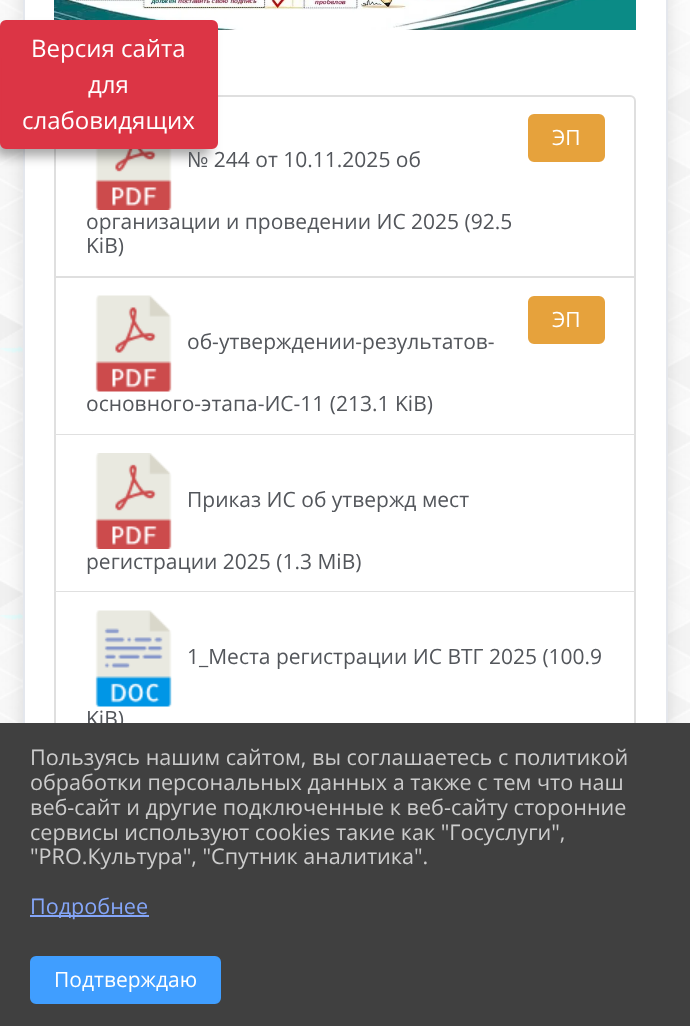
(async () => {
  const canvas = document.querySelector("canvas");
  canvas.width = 690;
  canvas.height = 1026;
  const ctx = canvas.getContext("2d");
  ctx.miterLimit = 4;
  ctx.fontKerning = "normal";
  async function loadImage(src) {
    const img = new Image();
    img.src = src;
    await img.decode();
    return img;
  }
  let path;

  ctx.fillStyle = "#ffffff";
  ctx.fillRect(0, 0, 690, 1026);
  ctx.drawImage(await loadImage("img/1.png"), 0, 0, 690, 723);
  ctx.fillStyle = "rgba(0, 0, 0, 0.12)";
  ctx.filter = "blur(9px)";
  ctx.beginPath();
  ctx.roundRect(23, -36, 645, 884, 9);
  ctx.fill();
  ctx.filter = "none";
  ctx.fillStyle = "#ffffff";
  ctx.fillRect(25, 0, 641, 723);
  ctx.strokeStyle = "#e4e7ed";
  ctx.lineWidth = 2;
  ctx.strokeRect(24, -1, 643, 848);
  ctx.drawImage(await loadImage("img/2.png"), 54, 0, 582, 30);
  ctx.beginPath();
  ctx.roundRect(55, 96, 580, 181, [5, 5, 0, 0]);
  ctx.strokeStyle = "#dfdfdf";
  ctx.stroke();
  ctx.drawImage(await loadImage("img/3.png"), 95, 149, 77, 61);
  ctx.fillStyle = "rgba(0, 0, 0, 0.35)";
  ctx.filter = "blur(6px)";
  ctx.beginPath();
  ctx.roundRect(-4, 30, 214, 126, 5);
  ctx.fill();
  ctx.filter = "none";
  ctx.fillStyle = "#dc3545";
  ctx.beginPath();
  ctx.roundRect(1, 21, 216, 127, 5);
  ctx.fill();
  ctx.strokeStyle = "#dc3545";
  ctx.stroke();
  ctx.fillStyle = "#e6a23c";
  ctx.beginPath();
  ctx.roundRect(529, 115, 75, 46, 5);
  ctx.fill();
  ctx.strokeStyle = "#e6a23c";
  ctx.stroke();
  ctx.fillStyle = "#dfdfdf";
  path = new Path2D("M636 278V435L634 434V278Z");
  ctx.fill(path);
  ctx.fillStyle = "rgba(0, 0, 0, 0.12)";
  path = new Path2D("M636 435H54L56 434H634Z");
  ctx.fill(path);
  path = new Path2D("M54 435V278H56V434Z");
  ctx.fill(path);
  ctx.fillStyle = "#e6a23c";
  ctx.beginPath();
  ctx.roundRect(529, 297, 75, 46, 5);
  ctx.fill();
  ctx.stroke();
  ctx.drawImage(await loadImage("img/4.png"), 95, 295, 77, 97);
  ctx.fillStyle = "#dfdfdf";
  path = new Path2D("M636 435V592L634 591V435Z");
  ctx.fill(path);
  ctx.fillStyle = "rgba(0, 0, 0, 0.12)";
  path = new Path2D("M636 592H54L56 591H634Z");
  ctx.fill(path);
  path = new Path2D("M54 592V435H56V591Z");
  ctx.fill(path);
  ctx.drawImage(await loadImage("img/5.png"), 95, 453, 77, 96);
  ctx.fillStyle = "#dfdfdf";
  path = new Path2D("M54 592H636V744C636 747 633 750 630 750H60C57 750 54 747 54 744ZM56 592H634V744C634 746 632 748 630 748H60C58 748 56 746 56 744Z");
  ctx.fill(path, "evenodd");
  ctx.drawImage(await loadImage("img/6.png"), 95, 610, 77, 97);
  ctx.font = "24px Open Sans";
  ctx.fillStyle = "#ffffff";
  for (const [text, x, y] of [
    ["Версия сайта", 31, 57],
    ["для", 88, 93],
    ["слабовидящих", 22, 129],
  ]) {
    ctx.fillText(text, x, y);
  }
  ctx.font = "21px Open Sans";
  ctx.fillText("ЭП", 552, 145);
  ctx.fillStyle = "#53565b";
  for (const [text, x, y] of [
    ["№ 244 от 10.11.2025 об", 187, 167],
    ["организации и проведении ИС 2025 (92.5", 86, 229],
    ["KiB)", 86, 253],
  ]) {
    ctx.fillText(text, x, y);
  }
  ctx.fillStyle = "#ffffff";
  ctx.fillText("ЭП", 552, 327);
  ctx.fillStyle = "#53565b";
  for (const [text, x, y] of [
    ["об-утверждении-результатов-", 187, 349],
    ["основного-этапа-ИС-11 (213.1 KiB)", 86, 411],
    ["Приказ ИС об утвержд мест", 187, 507],
    ["регистрации 2025 (1.3 MiB)", 86, 569],
    ["1_Места регистрации ИС ВТГ 2025 (100.9", 187, 664],
    ["KiB)", 86, 726],
  ]) {
    ctx.fillText(text, x, y);
  }
  ctx.fillStyle = "#404040";
  ctx.fillRect(0, 723, 690, 303);
  ctx.font = "21.6px Open Sans";
  ctx.fillStyle = "#cccccc";
  for (const [text, x, y] of [
    ["Пользуясь нашим сайтом, вы соглашаетесь с политикой", 30, 765],
    ["обработки персональных данных а также с тем что наш", 30, 790],
    ["веб-сайт и другие подключенные к веб-сайту сторонние", 30, 815],
    ["сервисы используют cookies такие как \"Госуслуги\",", 30, 840],
    ["\"PRO.Культура\", \"Спутник аналитика\".", 30, 864],
  ]) {
    ctx.fillText(text, x, y);
  }
  ctx.fillStyle = "#85a6f9";
  ctx.fillRect(30, 915, 119, 2);
  ctx.fillText("Подробнее", 30, 914);
  ctx.fillStyle = "#409eff";
  ctx.beginPath();
  ctx.roundRect(31, 957, 189, 46, 5);
  ctx.fill();
  ctx.strokeStyle = "#409eff";
  ctx.stroke();
  ctx.font = "21px Open Sans";
  ctx.fillStyle = "#ffffff";
  ctx.fillText("Подтверждаю", 54, 987);
})();
